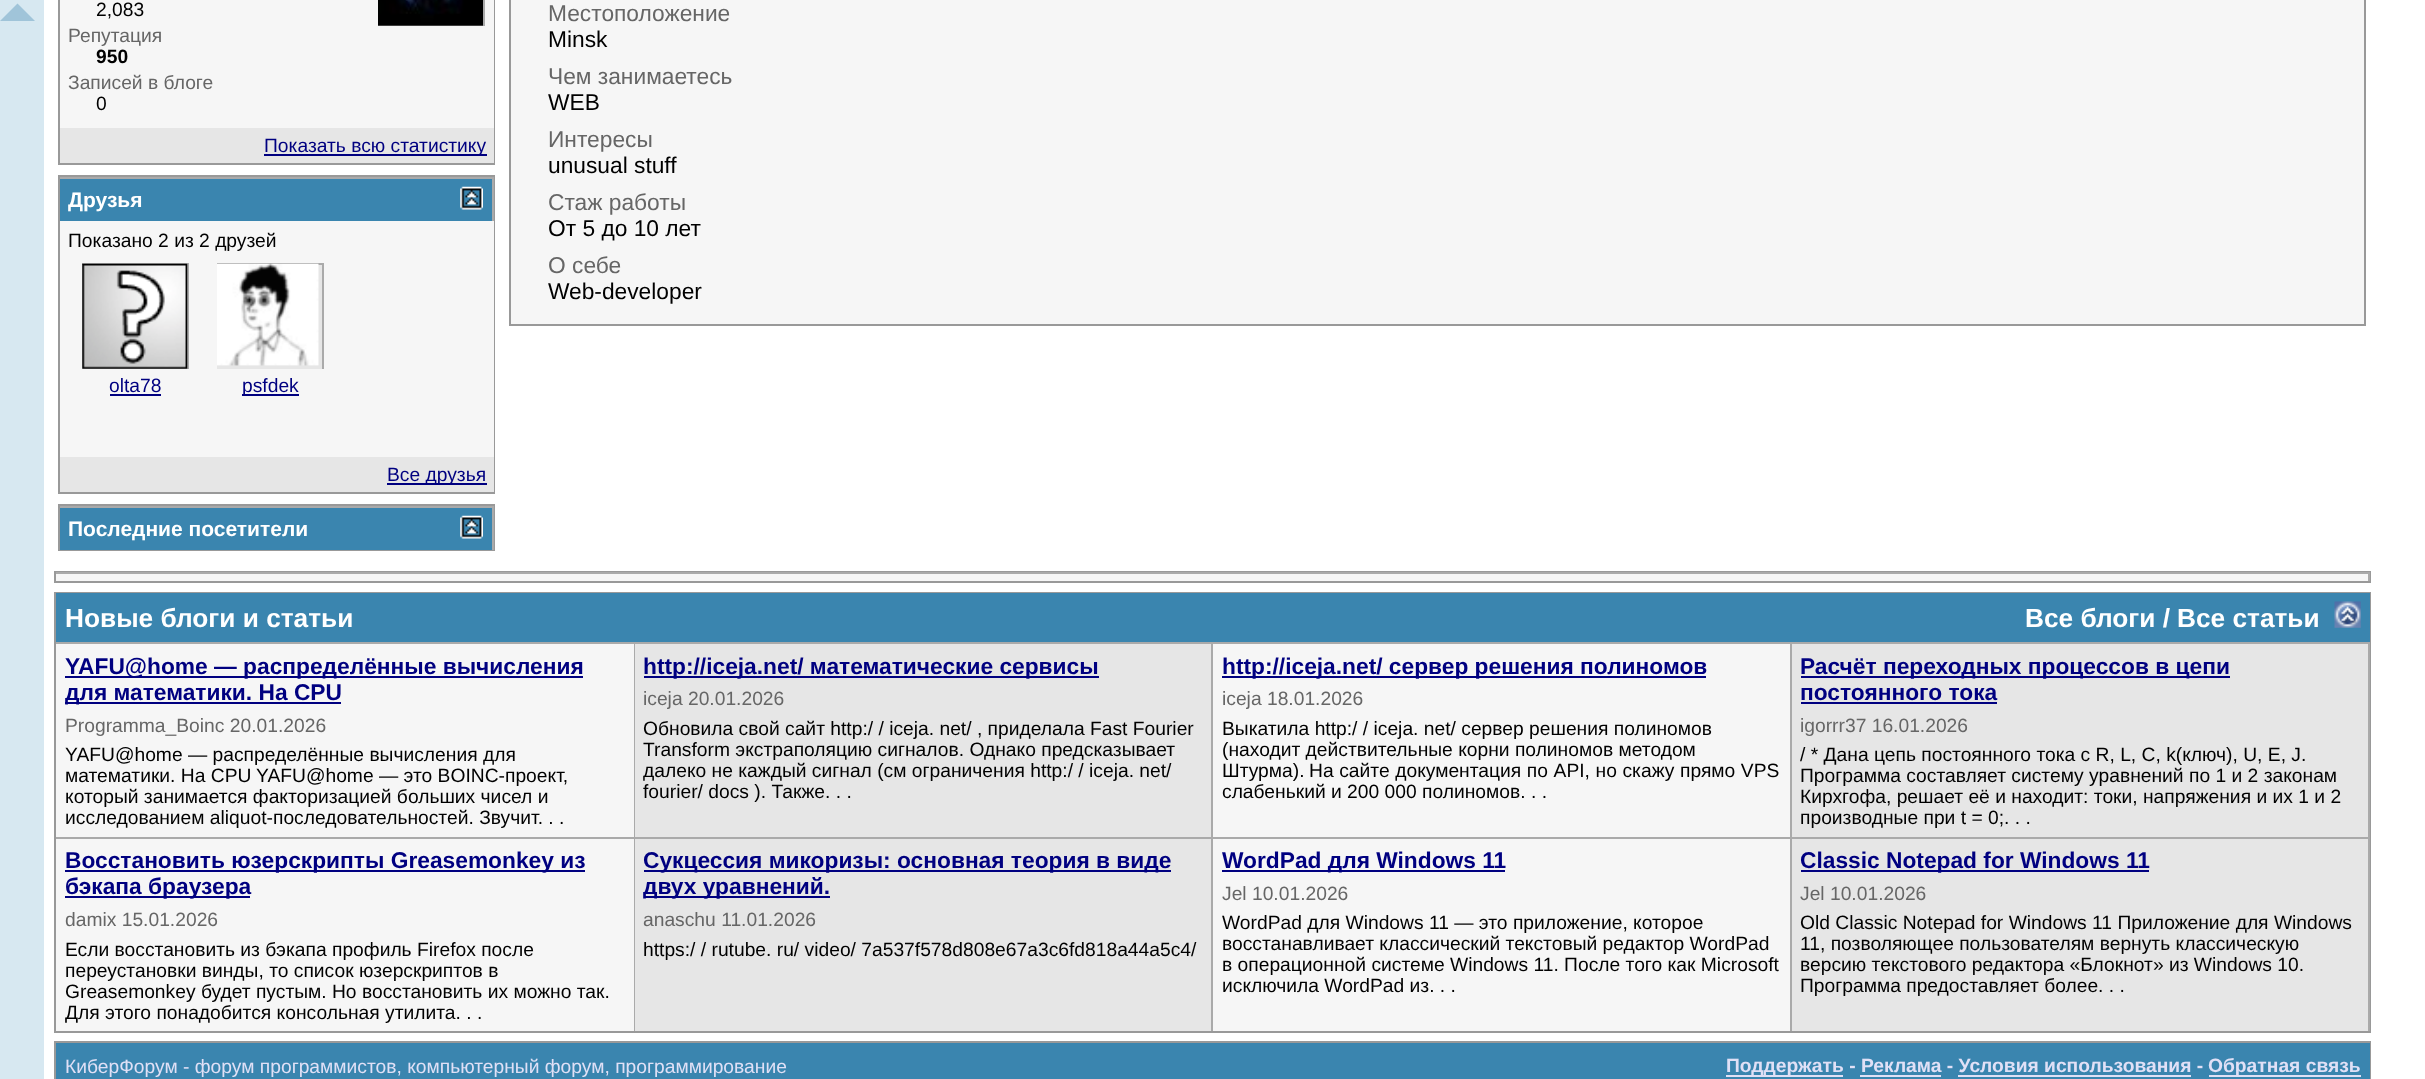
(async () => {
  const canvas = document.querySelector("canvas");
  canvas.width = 2425;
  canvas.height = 1079;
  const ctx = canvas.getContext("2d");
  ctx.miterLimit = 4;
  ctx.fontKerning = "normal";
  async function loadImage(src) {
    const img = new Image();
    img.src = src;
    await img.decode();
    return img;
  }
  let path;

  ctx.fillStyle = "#ffffff";
  ctx.fillRect(0, 0, 2425, 1079);
  ctx.fillStyle = "#d7e8f1";
  ctx.fillRect(0, 0, 44, 1079);
  ctx.fillStyle = "#a0c4d9";
  path = new Path2D("M35 21H0L17.5 3.5Z");
  ctx.fill(path);
  ctx.strokeStyle = "#999999";
  ctx.lineWidth = 2;
  ctx.strokeRect(59, -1, 435, 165);
  ctx.fillStyle = "#f6f6f6";
  ctx.fillRect(60, 0, 434, 128);
  ctx.drawImage(await loadImage("img/1.png"), 378, 0, 105, 26);
  for (const [x, y, w, h, color] of [
    [483, 0, 2, 26, "#aaaaaa"],
    [60, 128, 434, 35, "#e6e6e6"],
    [264, 154, 223, 2, "#000080"],
  ]) {
    ctx.fillStyle = color;
    ctx.fillRect(x, y, w, h);
  }
  ctx.strokeRect(59, 176, 435, 317);
  for (const [x, y, w, h, color] of [
    [60, 179, 432, 42, "#3a85af"],
    [60, 177, 434, 2, "#aaaaaa"],
    [492, 177, 2, 44, "#aaaaaa"],
  ]) {
    ctx.fillStyle = color;
    ctx.fillRect(x, y, w, h);
  }
  ctx.drawImage(await loadImage("img/2.png"), 460, 186, 23, 24);
  for (const [x, y, w, h, color] of [
    [60, 221, 434, 236, "#f6f6f6"],
    [82, 263, 107, 2, "#aaaaaa"],
    [82, 265, 105, 104, "#e6e6e6"],
    [187, 263, 2, 106, "#aaaaaa"],
  ]) {
    ctx.fillStyle = color;
    ctx.fillRect(x, y, w, h);
  }
  ctx.drawImage(await loadImage("img/3.png"), 82, 263, 106, 106);
  for (const [x, y, w, h, color] of [
    [110, 394, 51, 2, "#000080"],
    [217, 263, 107, 2, "#aaaaaa"],
    [217, 265, 105, 104, "#e6e6e6"],
  ]) {
    ctx.fillStyle = color;
    ctx.fillRect(x, y, w, h);
  }
  ctx.drawImage(await loadImage("img/4.png"), 217, 263, 102, 103);
  for (const [x, y, w, h, color] of [
    [322, 263, 2, 106, "#aaaaaa"],
    [242, 394, 57, 2, "#000080"],
    [60, 457, 434, 35, "#e6e6e6"],
    [387, 483, 100, 2, "#000080"],
  ]) {
    ctx.fillStyle = color;
    ctx.fillRect(x, y, w, h);
  }
  ctx.strokeRect(59, 505, 435, 45);
  for (const [x, y, w, h, color] of [
    [60, 508, 432, 42, "#3a85af"],
    [60, 506, 434, 2, "#aaaaaa"],
    [492, 506, 2, 44, "#aaaaaa"],
  ]) {
    ctx.fillStyle = color;
    ctx.fillRect(x, y, w, h);
  }
  ctx.drawImage(await loadImage("img/2.png"), 460, 515, 23, 24);
  ctx.strokeRect(510, -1, 1855, 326);
  ctx.fillStyle = "#f6f6f6";
  ctx.fillRect(511, 0, 1853, 324);
  ctx.strokeRect(55, 572, 2315, 10);
  for (const [x, y, w, h, color] of [
    [56, 574, 2312, 7, "#f6f6f6"],
    [56, 572, 2314, 2, "#aaaaaa"],
    [2368, 572, 2, 9, "#aaaaaa"],
  ]) {
    ctx.fillStyle = color;
    ctx.fillRect(x, y, w, h);
  }
  ctx.strokeRect(55, 593, 2315, 439);
  ctx.fillStyle = "#3a85af";
  ctx.fillRect(56, 593, 2314, 49);
  ctx.drawImage(await loadImage("img/5.png"), 2334, 601, 27, 27);
  for (const [x, y, w, h, color] of [
    [56, 644, 578, 193, "#f6f6f6"],
    [56, 642, 2314, 2, "#aaaaaa"],
    [634, 642, 1, 195, "#aaaaaa"],
    [65, 676, 518, 2, "#000080"],
    [65, 702, 276, 2, "#000080"],
    [635, 644, 576, 193, "#e6e6e6"],
    [1211, 642, 2, 195, "#aaaaaa"],
    [644, 676, 455, 2, "#000080"],
    [1213, 644, 577, 193, "#f6f6f6"],
    [1790, 642, 2, 195, "#aaaaaa"],
    [1222, 676, 484, 2, "#000080"],
    [1792, 644, 576, 193, "#e6e6e6"],
    [2368, 642, 2, 195, "#aaaaaa"],
    [1801, 676, 429, 2, "#000080"],
    [1801, 702, 196, 2, "#000080"],
    [56, 839, 578, 192, "#f6f6f6"],
    [56, 837, 2314, 2, "#aaaaaa"],
    [634, 837, 1, 194, "#aaaaaa"],
    [65, 870, 520, 2, "#000080"],
    [65, 896, 185, 2, "#000080"],
    [635, 839, 576, 192, "#e6e6e6"],
    [1211, 837, 2, 194, "#aaaaaa"],
    [644, 870, 527, 2, "#000080"],
    [644, 896, 186, 2, "#000080"],
    [1213, 839, 577, 192, "#f6f6f6"],
    [1790, 837, 2, 194, "#aaaaaa"],
    [1222, 870, 283, 2, "#000080"],
    [1792, 839, 576, 192, "#e6e6e6"],
    [2368, 837, 2, 194, "#aaaaaa"],
    [1801, 870, 348, 2, "#000080"],
  ]) {
    ctx.fillStyle = color;
    ctx.fillRect(x, y, w, h);
  }
  ctx.strokeRect(55, 1042, 2315, 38);
  for (const [x, y, w, h, color] of [
    [56, 1043, 2314, 36, "#3a85af"],
    [1726, 1075, 117, 2, "#e0e0f6"],
    [1860, 1075, 81, 2, "#e0e0f6"],
    [1958, 1075, 233, 2, "#e0e0f6"],
    [2209, 1075, 152, 2, "#e0e0f6"],
  ]) {
    ctx.fillStyle = color;
    ctx.fillRect(x, y, w, h);
  }
  ctx.font = "19.25px Liberation Sans";
  ctx.fillStyle = "#000000";
  ctx.fillText("2,083", 96, 16);
  ctx.fillStyle = "#666666";
  ctx.fillText("Репутация", 68, 42);
  ctx.font = "bold 19.25px Liberation Sans";
  ctx.fillStyle = "#000000";
  ctx.fillText("950", 96, 63);
  ctx.font = "19.25px Liberation Sans";
  ctx.fillStyle = "#666666";
  ctx.fillText("Записей в блоге", 68, 89);
  ctx.fillStyle = "#000000";
  ctx.fillText("0", 96, 110);
  ctx.fillStyle = "#000080";
  ctx.fillText("Показать всю статистику", 264, 152);
  ctx.font = "bold 21px Liberation Sans";
  ctx.fillStyle = "#ffffff";
  ctx.fillText("Друзья", 68, 207);
  ctx.font = "19.25px Liberation Sans";
  ctx.fillStyle = "#000000";
  ctx.fillText("Показано 2 из 2 друзей", 68, 247);
  ctx.fillStyle = "#000080";
  for (const [text, x, y] of [
    ["olta78", 109, 392],
    ["psfdek", 242, 392],
    ["Все друзья", 387, 481],
  ]) {
    ctx.fillText(text, x, y);
  }
  ctx.font = "bold 21px Liberation Sans";
  ctx.fillStyle = "#ffffff";
  ctx.fillText("Последние посетители", 68, 536);
  ctx.font = "22.75px Liberation Sans";
  ctx.fillStyle = "#666666";
  ctx.fillText("Местоположение", 548, 21);
  ctx.fillStyle = "#000000";
  ctx.fillText("Minsk", 548, 47);
  ctx.fillStyle = "#666666";
  ctx.fillText("Чем занимаетесь", 548, 84);
  ctx.fillStyle = "#000000";
  ctx.fillText("WEB", 548, 110);
  ctx.fillStyle = "#666666";
  ctx.fillText("Интересы", 548, 147);
  ctx.fillStyle = "#000000";
  ctx.fillText("unusual stuff", 548, 173);
  ctx.fillStyle = "#666666";
  ctx.fillText("Стаж работы", 548, 210);
  ctx.fillStyle = "#000000";
  ctx.fillText("От 5 до 10 лет", 548, 236);
  ctx.fillStyle = "#666666";
  ctx.fillText("О себе", 548, 273);
  ctx.fillStyle = "#000000";
  ctx.fillText("Web-developer", 548, 299);
  ctx.font = "bold 26.25px Liberation Sans";
  ctx.fillStyle = "#ffffff";
  for (const [text, x, y] of [
    ["Новые блоги и статьи", 65, 627],
    ["Все блоги /", 2025, 627],
    ["Все статьи", 2177, 627],
  ]) {
    ctx.fillText(text, x, y);
  }
  ctx.font = "bold 22.75px Liberation Sans";
  ctx.fillStyle = "#000080";
  ctx.fillText("YAFU@home — распределённые вычисления", 65, 674);
  ctx.fillText("для математики. На CPU", 65, 700);
  ctx.font = "19.25px Liberation Sans";
  ctx.fillStyle = "#666666";
  ctx.fillText("Programma_Boinc 20.01.2026", 65, 732);
  ctx.fillStyle = "#000000";
  for (const [text, x, y] of [
    ["YAFU@home — распределённые вычисления для", 65, 761],
    ["математики. На CPU", 65, 782],
    ["YAFU@home — это BOINC-проект,", 256, 782],
    ["который занимается факторизацией больших чисел и", 65, 803],
    ["исследованием aliquot-последовательностей. Звучит. . .", 65, 824],
  ]) {
    ctx.fillText(text, x, y);
  }
  ctx.font = "bold 22.75px Liberation Sans";
  ctx.fillStyle = "#000080";
  ctx.fillText("http://iceja.net/ математические сервисы", 643, 674);
  ctx.font = "19.25px Liberation Sans";
  ctx.fillStyle = "#666666";
  ctx.fillText("iceja 20.01.2026", 643, 705);
  ctx.fillStyle = "#000000";
  for (const [text, x, y] of [
    ["Обновила свой сайт http:/ / iceja. net/ , приделала Fast Fourier", 643, 735],
    ["Transform экстраполяцию сигналов. Однако предсказывает", 643, 756],
    ["далеко не каждый сигнал (см ограничения http:/ / iceja. net/", 643, 777],
    ["fourier/ docs ). Также. . .", 643, 798],
  ]) {
    ctx.fillText(text, x, y);
  }
  ctx.font = "bold 22.75px Liberation Sans";
  ctx.fillStyle = "#000080";
  ctx.fillText("http://iceja.net/ сервер решения полиномов", 1222, 674);
  ctx.font = "19.25px Liberation Sans";
  ctx.fillStyle = "#666666";
  ctx.fillText("iceja 18.01.2026", 1222, 705);
  ctx.fillStyle = "#000000";
  for (const [text, x, y] of [
    ["Выкатила http:/ / iceja. net/ сервер решения полиномов", 1222, 735],
    ["(находит действительные корни полиномов методом", 1222, 756],
    ["Штурма).", 1222, 777],
  ]) {
    ctx.fillText(text, x, y);
  }
  ctx.wordSpacing = "0.25px";
  ctx.fillText("На сайте документация по API, но скажу прямо VPS", 1309, 777);
  ctx.wordSpacing = "0px";
  ctx.fillText("слабенький и 200 000 полиномов. . .", 1222, 798);
  ctx.font = "bold 22.75px Liberation Sans";
  ctx.fillStyle = "#000080";
  ctx.fillText("Расчёт переходных процессов в цепи", 1800, 674);
  ctx.fillText("постоянного тока", 1800, 700);
  ctx.font = "19.25px Liberation Sans";
  ctx.fillStyle = "#666666";
  ctx.fillText("igorrr37 16.01.2026", 1800, 732);
  ctx.fillStyle = "#000000";
  for (const [text, x, y] of [
    ["/ * Дана цепь постоянного тока с R, L, C, k(ключ), U, E, J.", 1800, 761],
    ["Программа составляет систему уравнений по 1 и 2 законам", 1800, 782],
    ["Кирхгофа, решает её и находит: токи, напряжения и их 1 и 2", 1800, 803],
    ["производные при t = 0;. . .", 1800, 824],
  ]) {
    ctx.fillText(text, x, y);
  }
  ctx.font = "bold 22.75px Liberation Sans";
  ctx.fillStyle = "#000080";
  ctx.fillText("Восстановить юзерскрипты Greasemonkey из", 65, 868);
  ctx.fillText("бэкапа браузера", 65, 894);
  ctx.font = "19.25px Liberation Sans";
  ctx.fillStyle = "#666666";
  ctx.fillText("damix 15.01.2026", 65, 926);
  ctx.fillStyle = "#000000";
  for (const [text, x, y] of [
    ["Если восстановить из бэкапа профиль Firefox после", 65, 956],
    ["переустановки винды, то список юзерскриптов в", 65, 977],
    ["Greasemonkey будет пустым. Но восстановить их можно так.", 65, 998],
    ["Для этого понадобится консольная утилита. . .", 65, 1019],
  ]) {
    ctx.fillText(text, x, y);
  }
  ctx.font = "bold 22.75px Liberation Sans";
  ctx.fillStyle = "#000080";
  ctx.fillText("Сукцессия микоризы: основная теория в виде", 643, 868);
  ctx.fillText("двух уравнений.", 643, 894);
  ctx.font = "19.25px Liberation Sans";
  ctx.fillStyle = "#666666";
  ctx.fillText("anaschu 11.01.2026", 643, 926);
  ctx.fillStyle = "#000000";
  ctx.fillText("https:/ / rutube. ru/ video/ 7a537f578d808e67a3c6fd818a44a5c4/", 643, 956);
  ctx.font = "bold 22.75px Liberation Sans";
  ctx.fillStyle = "#000080";
  ctx.fillText("WordPad для Windows 11", 1222, 868);
  ctx.font = "19.25px Liberation Sans";
  ctx.fillStyle = "#666666";
  ctx.fillText("Jel 10.01.2026", 1222, 900);
  ctx.fillStyle = "#000000";
  for (const [text, x, y] of [
    ["WordPad для Windows 11 — это приложение, которое", 1222, 929],
    ["восстанавливает классический текстовый редактор WordPad", 1222, 950],
    ["в операционной системе Windows 11. После того как Microsoft", 1222, 971],
    ["исключила WordPad из. . .", 1222, 992],
  ]) {
    ctx.fillText(text, x, y);
  }
  ctx.font = "bold 22.75px Liberation Sans";
  ctx.fillStyle = "#000080";
  ctx.fillText("Classic Notepad for Windows 11", 1800, 868);
  ctx.font = "19.25px Liberation Sans";
  ctx.fillStyle = "#666666";
  ctx.fillText("Jel 10.01.2026", 1800, 900);
  ctx.fillStyle = "#000000";
  for (const [text, x, y] of [
    ["Old Classic Notepad for Windows 11 Приложение для Windows", 1800, 929],
    ["11, позволяющее пользователям вернуть классическую", 1800, 950],
    ["версию текстового редактора «Блокнот» из Windows 10.", 1800, 971],
    ["Программа предоставляет более. . .", 1800, 992],
  ]) {
    ctx.fillText(text, x, y);
  }
  ctx.fillStyle = "#e0e0f6";
  ctx.fillText("КиберФорум - форум программистов, компьютерный форум, программирование", 65, 1073);
  ctx.font = "bold 19.25px Liberation Sans";
  ctx.fillText("Поддержать - Реклама - Условия использования -", 1726, 1072);
  ctx.fillText("Обратная связь", 2208, 1072);
})();
